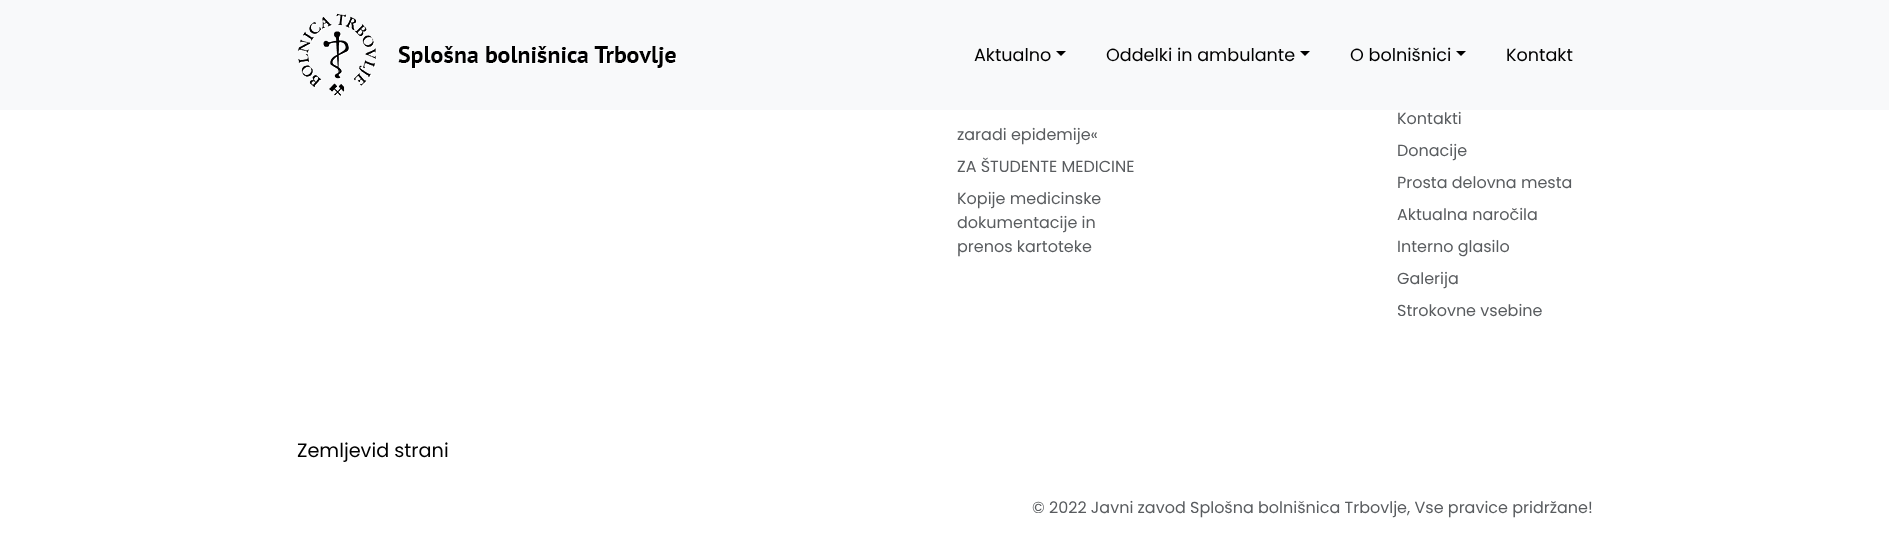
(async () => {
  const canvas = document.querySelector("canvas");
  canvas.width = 1889;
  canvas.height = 536;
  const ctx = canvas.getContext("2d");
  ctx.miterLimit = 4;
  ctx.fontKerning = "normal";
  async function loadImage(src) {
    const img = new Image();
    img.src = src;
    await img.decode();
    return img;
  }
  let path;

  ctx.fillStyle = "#ffffff";
  ctx.fillRect(0, 0, 1889, 536);
  ctx.fillStyle = "#f8f9fa";
  ctx.fillRect(0, 0, 1889, 110);
  ctx.drawImage(await loadImage("img/1.png"), 297, 13, 380, 84);
  ctx.fillStyle = "#000000";
  path = new Path2D("M1056 51H1066L1061 56Z");
  ctx.fill(path);
  path = new Path2D("M1300 51H1310L1305 56Z");
  ctx.fill(path);
  path = new Path2D("M1456 51H1466L1461 56Z");
  ctx.fill(path);
  ctx.font = "17.6px Poppins";
  for (const [text, x, y] of [
    ["Aktualno", 974, 61],
    ["Oddelki in ambulante", 1106, 61],
    ["O bolnišnici", 1350, 61],
    ["Kontakt", 1506, 61],
  ]) {
    ctx.fillText(text, x, y);
  }
  ctx.font = "16px Poppins";
  ctx.fillStyle = "#595c5f";
  for (const [text, x, y] of [
    ["zaradi epidemije«", 957, 140],
    ["ZA ŠTUDENTE MEDICINE", 957, 172],
    ["Kopije medicinske", 957, 204],
    ["dokumentacije in", 957, 228],
    ["prenos kartoteke", 957, 252],
    ["Kontakti", 1397, 124],
    ["Donacije", 1397, 156],
    ["Prosta delovna mesta", 1397, 188],
    ["Aktualna naročila", 1397, 220],
    ["Interno glasilo", 1397, 252],
    ["Galerija", 1397, 284],
    ["Strokovne vsebine", 1397, 316],
  ]) {
    ctx.fillText(text, x, y);
  }
  ctx.font = "19.25px Poppins";
  ctx.fillStyle = "#000000";
  ctx.fillText("Zemljevid strani", 297, 457);
  ctx.font = "16px Poppins";
  ctx.fillStyle = "#595c5f";
  ctx.fillText("© 2022 Javni zavod Splošna bolnišnica Trbovlje, Vse pravice pridržane!", 1032, 513);
})();
